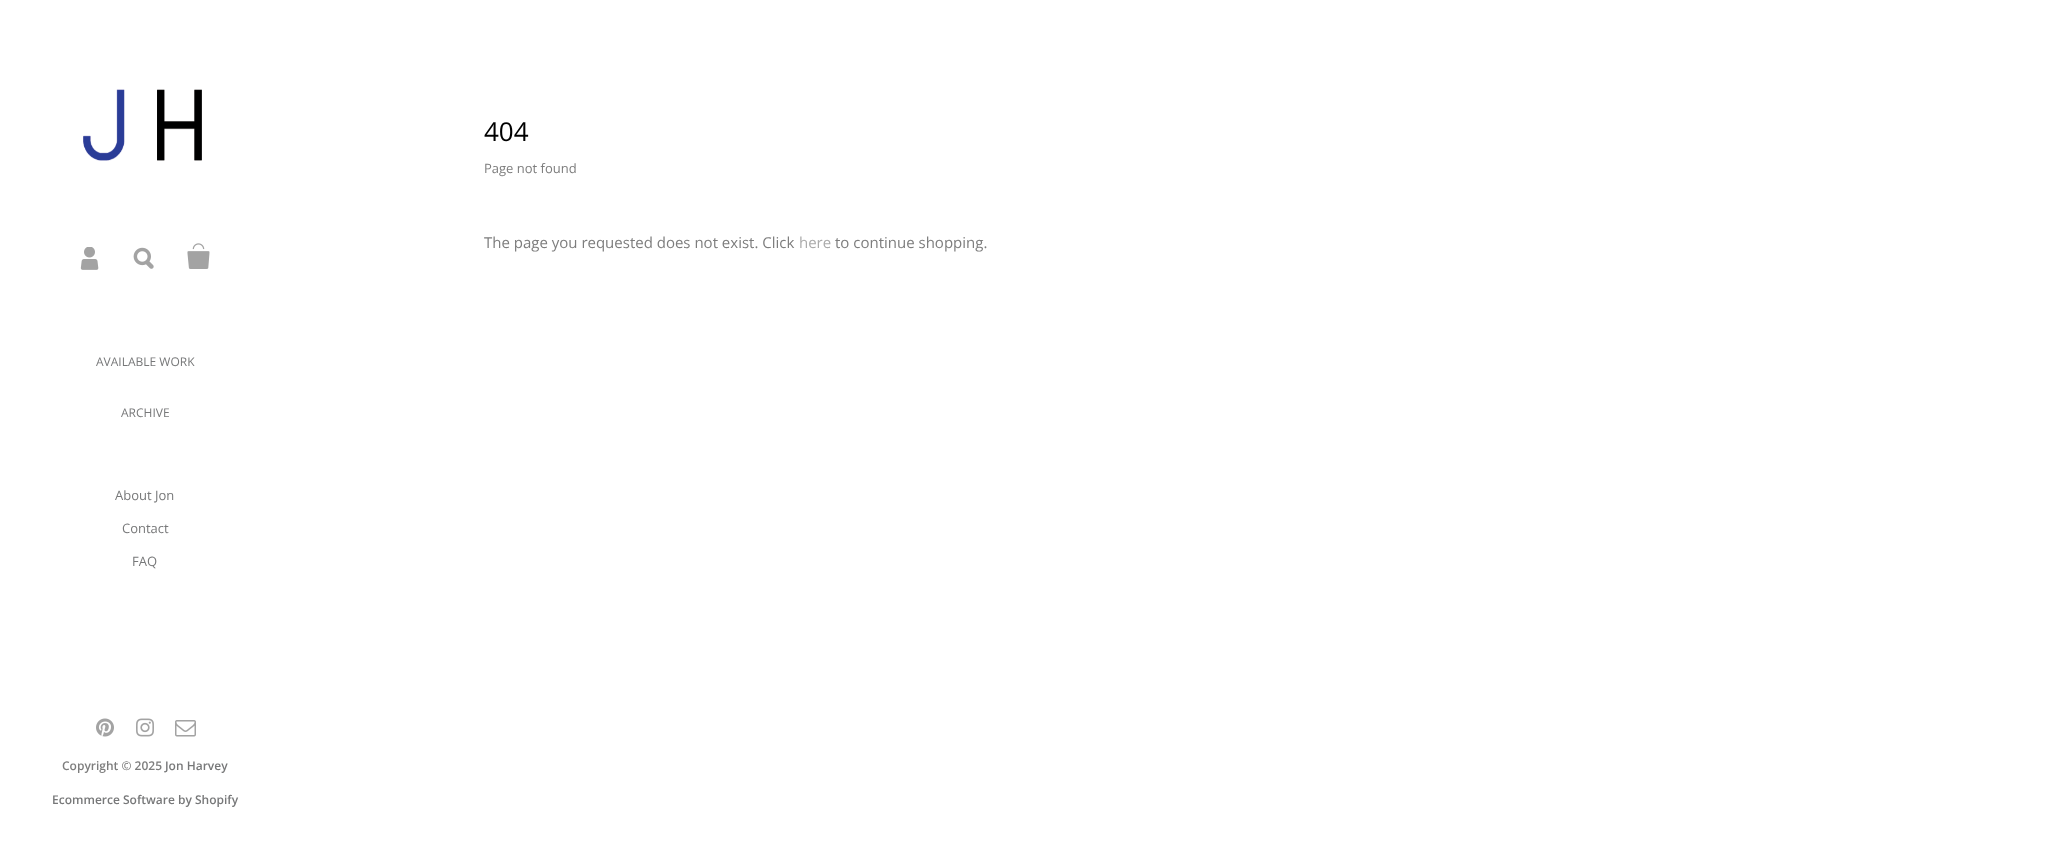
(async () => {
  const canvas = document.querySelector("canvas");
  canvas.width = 2058;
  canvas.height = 860;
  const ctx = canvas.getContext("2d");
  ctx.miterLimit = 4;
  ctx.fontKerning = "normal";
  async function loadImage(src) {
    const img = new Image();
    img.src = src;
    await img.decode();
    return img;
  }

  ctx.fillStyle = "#ffffff";
  ctx.fillRect(0, 0, 2058, 860);
  ctx.drawImage(await loadImage("img/1.png"), 83, 89, 119, 72);
  ctx.drawImage(await loadImage("img/2.png"), 80, 247, 19, 23);
  ctx.drawImage(await loadImage("img/3.png"), 133, 247, 21, 22);
  ctx.drawImage(await loadImage("img/4.png"), 187, 243, 23, 26);
  ctx.drawImage(await loadImage("img/5.png"), 96, 718, 18, 19);
  ctx.drawImage(await loadImage("img/6.png"), 136, 718, 18, 19);
  ctx.drawImage(await loadImage("img/7.png"), 175, 720, 21, 17);
  ctx.font = "26px Open Sans";
  ctx.fillStyle = "#000000";
  ctx.fillText("404", 484, 141);
  ctx.font = "13px Open Sans";
  ctx.fillStyle = "#7d7d7d";
  ctx.fillText("Page not found", 484, 173);
  ctx.font = "15px Open Sans";
  ctx.fillText("The page you requested does not exist. Click", 484, 248);
  ctx.fillStyle = "#ababab";
  ctx.fillText("here", 799, 248);
  ctx.fillStyle = "#7d7d7d";
  ctx.fillText("to continue shopping.", 835, 248);
  ctx.font = "12px Open Sans";
  ctx.fillStyle = "#777879";
  ctx.fillText("AVAILABLE WORK", 96, 366);
  ctx.fillText("ARCHIVE", 121, 417);
  ctx.font = "13px Open Sans";
  for (const [text, x, y] of [
    ["About Jon", 115, 500],
    ["Contact", 122, 533],
    ["FAQ", 132, 566],
  ]) {
    ctx.fillText(text, x, y);
  }
  ctx.font = "600 12px Open Sans";
  ctx.fillStyle = "#7d7d7d";
  ctx.fillText("Copyright © 2025", 62, 770);
  ctx.fillStyle = "#777879";
  ctx.fillText("Jon Harvey", 165, 770);
  ctx.fillText("Ecommerce Software by Shopify", 52, 804);
})();
